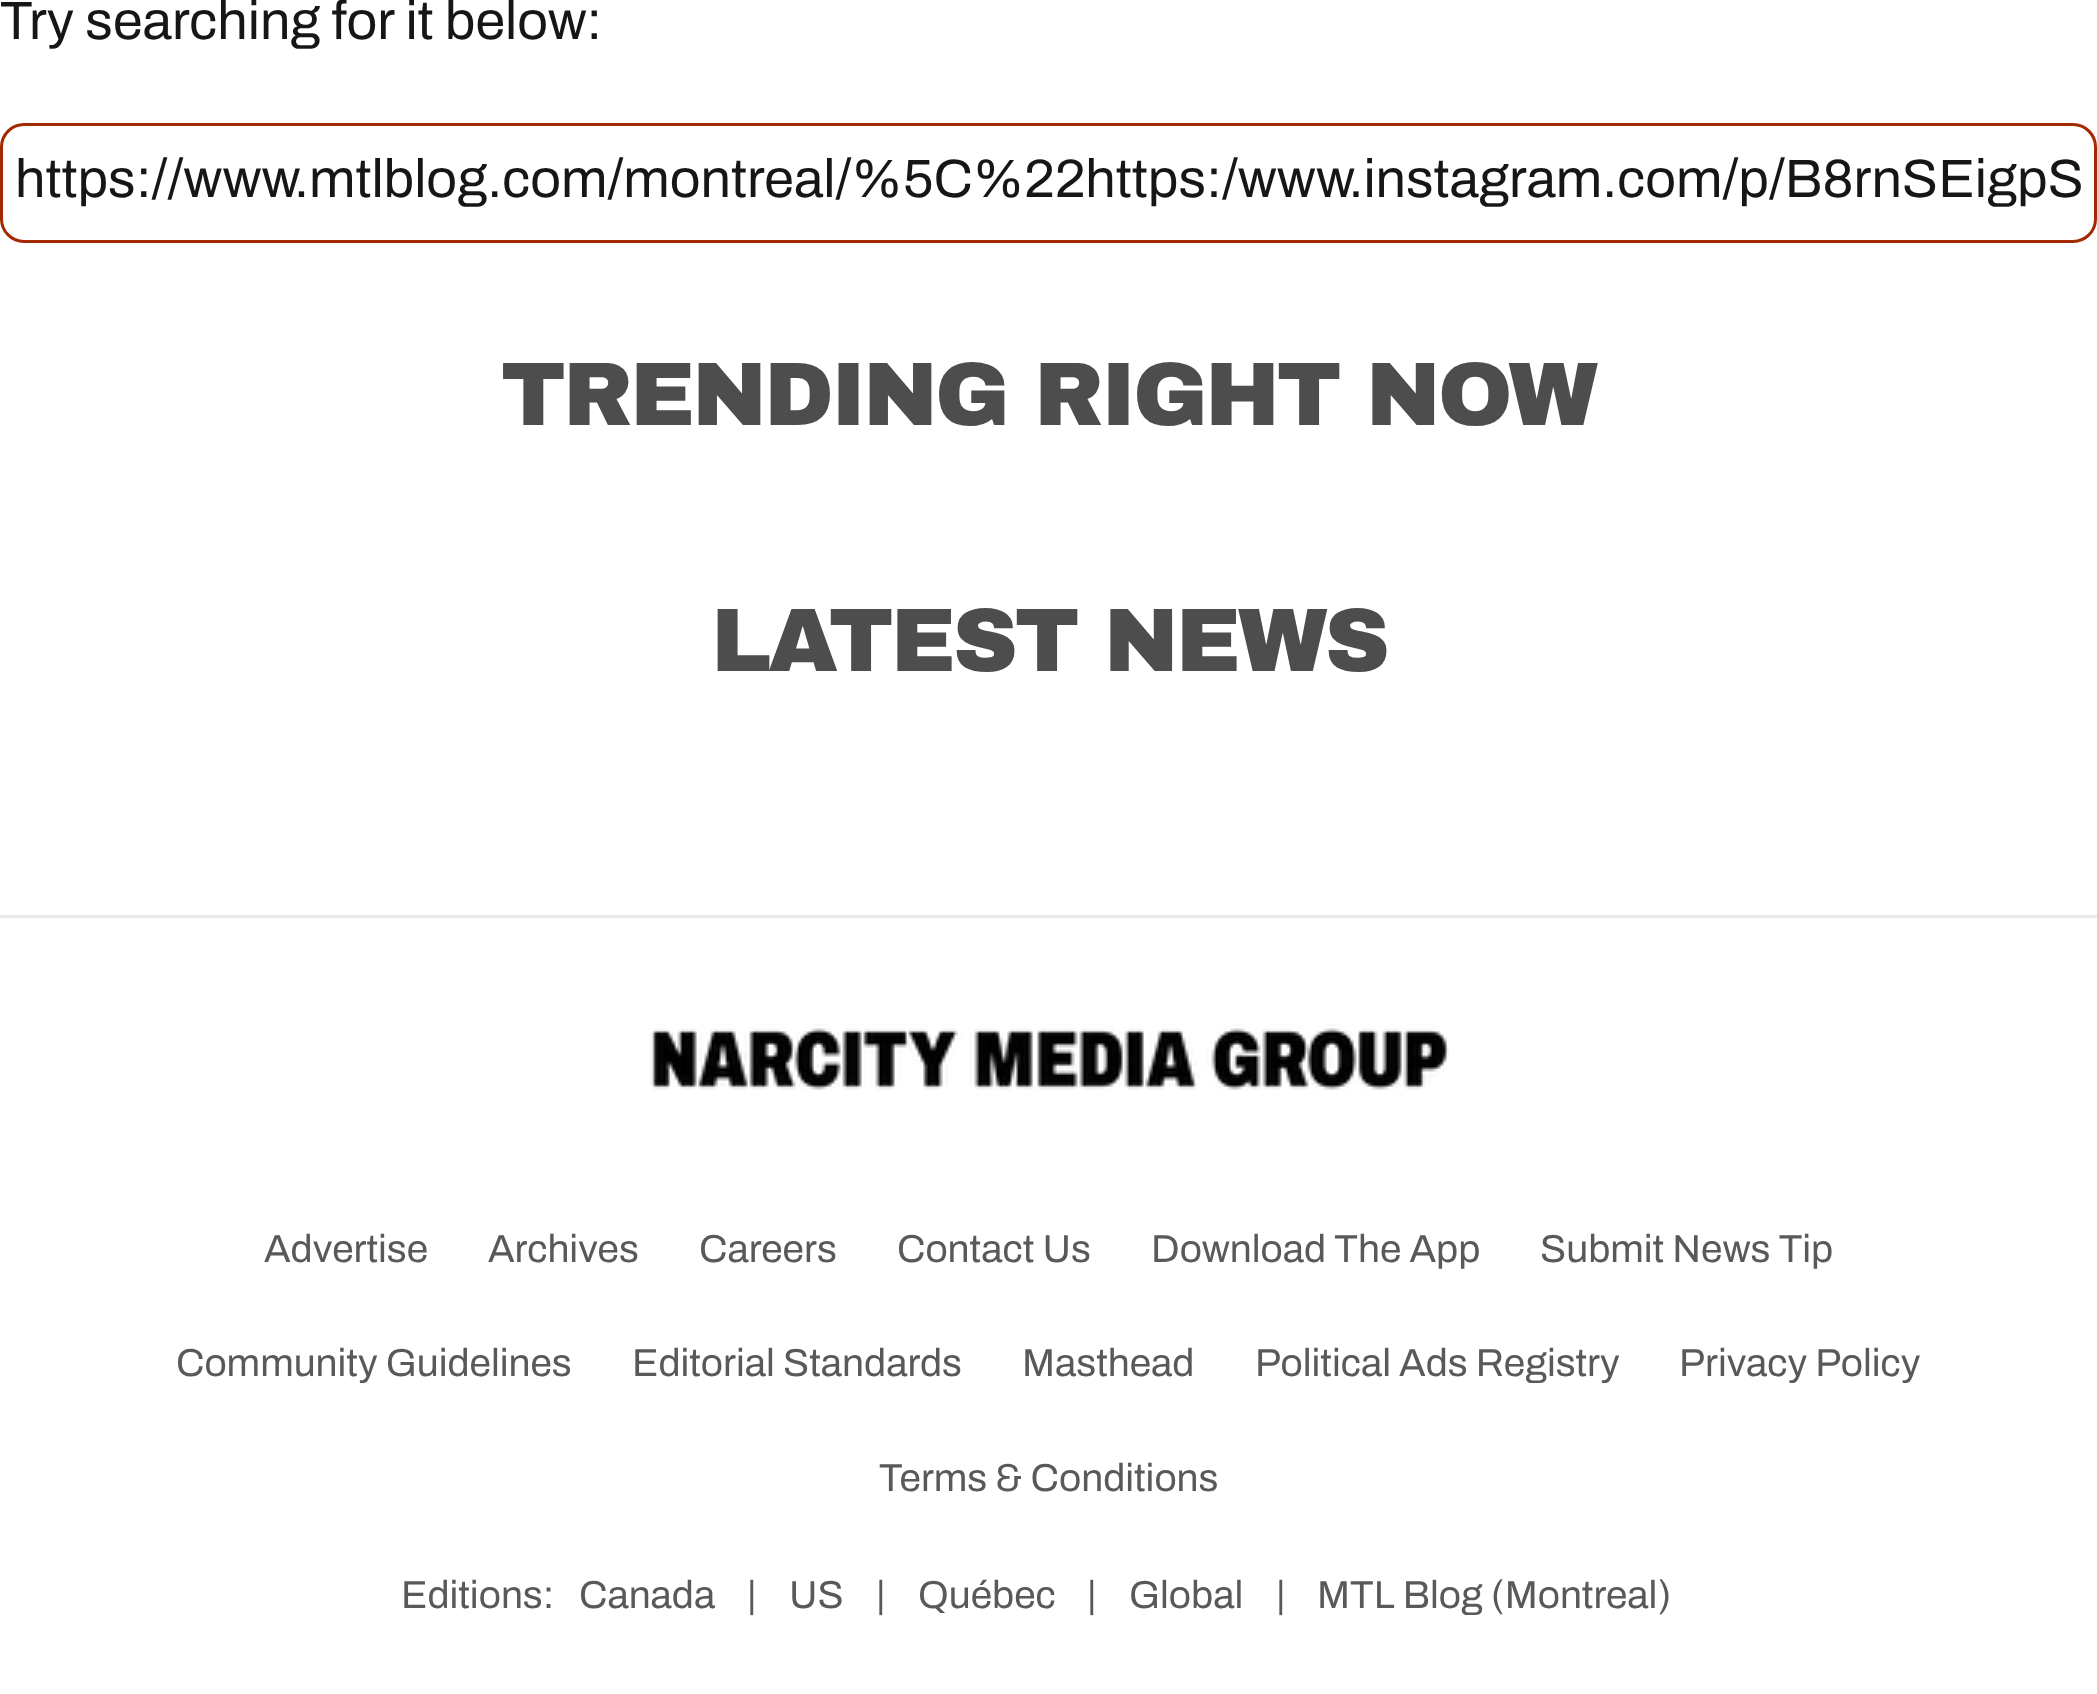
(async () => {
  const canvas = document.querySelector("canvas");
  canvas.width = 2097;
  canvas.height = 1694;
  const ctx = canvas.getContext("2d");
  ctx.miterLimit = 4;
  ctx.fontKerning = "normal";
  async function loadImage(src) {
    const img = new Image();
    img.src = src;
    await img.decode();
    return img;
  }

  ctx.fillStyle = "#ffffff";
  ctx.fillRect(0, 0, 2097, 1694);
  ctx.beginPath();
  ctx.roundRect(1.5, 124.5, 2094, 117, 22.5);
  ctx.strokeStyle = "#a32900";
  ctx.lineWidth = 3;
  ctx.stroke();
  ctx.fillStyle = "#e9e9e9";
  ctx.fillRect(0, 915, 2097, 3);
  ctx.drawImage(await loadImage("img/1.png"), 650, 1024, 799, 67);
  ctx.font = "54px Archivo";
  ctx.fillStyle = "#161616";
  ctx.fillText("Try searching for it below:", 0, 39);
  ctx.fillText("https://www.mtlblog.com/montreal/%5C%22https:/www.instagram.com/p/B8rnSEigpS", 15, 197);
  ctx.letterSpacing = "-3px";
  ctx.font = "900 90px Archivo Black";
  ctx.fillStyle = "#4d4d4d";
  ctx.fillText("TRENDING RIGHT NOW", 501, 425);
  ctx.fillText("LATEST NEWS", 711, 671);
  ctx.letterSpacing = "0px";
  ctx.font = "39px Archivo";
  ctx.fillStyle = "#595959";
  for (const [text, x, y] of [
    ["Advertise", 264, 1262],
    ["Archives", 488, 1262],
    ["Careers", 699, 1262],
    ["Contact Us", 897, 1262],
    ["Download The App", 1151, 1262],
    ["Submit News Tip", 1540, 1262],
    ["Community Guidelines", 176, 1376],
    ["Editorial Standards", 632, 1376],
    ["Masthead", 1022, 1376],
    ["Political Ads Registry", 1255, 1376],
    ["Privacy Policy", 1679, 1376],
    ["Terms & Conditions", 879, 1491],
    ["Editions:", 401, 1608],
    ["Canada", 579, 1608],
    ["|", 747, 1608],
    ["US", 789, 1608],
    ["|", 876, 1608],
    ["Québec", 918, 1608],
    ["|", 1087, 1608],
    ["Global", 1129, 1608],
    ["|", 1276, 1608],
    ["MTL Blog (Montreal)", 1317, 1608],
  ]) {
    ctx.fillText(text, x, y);
  }
})();
